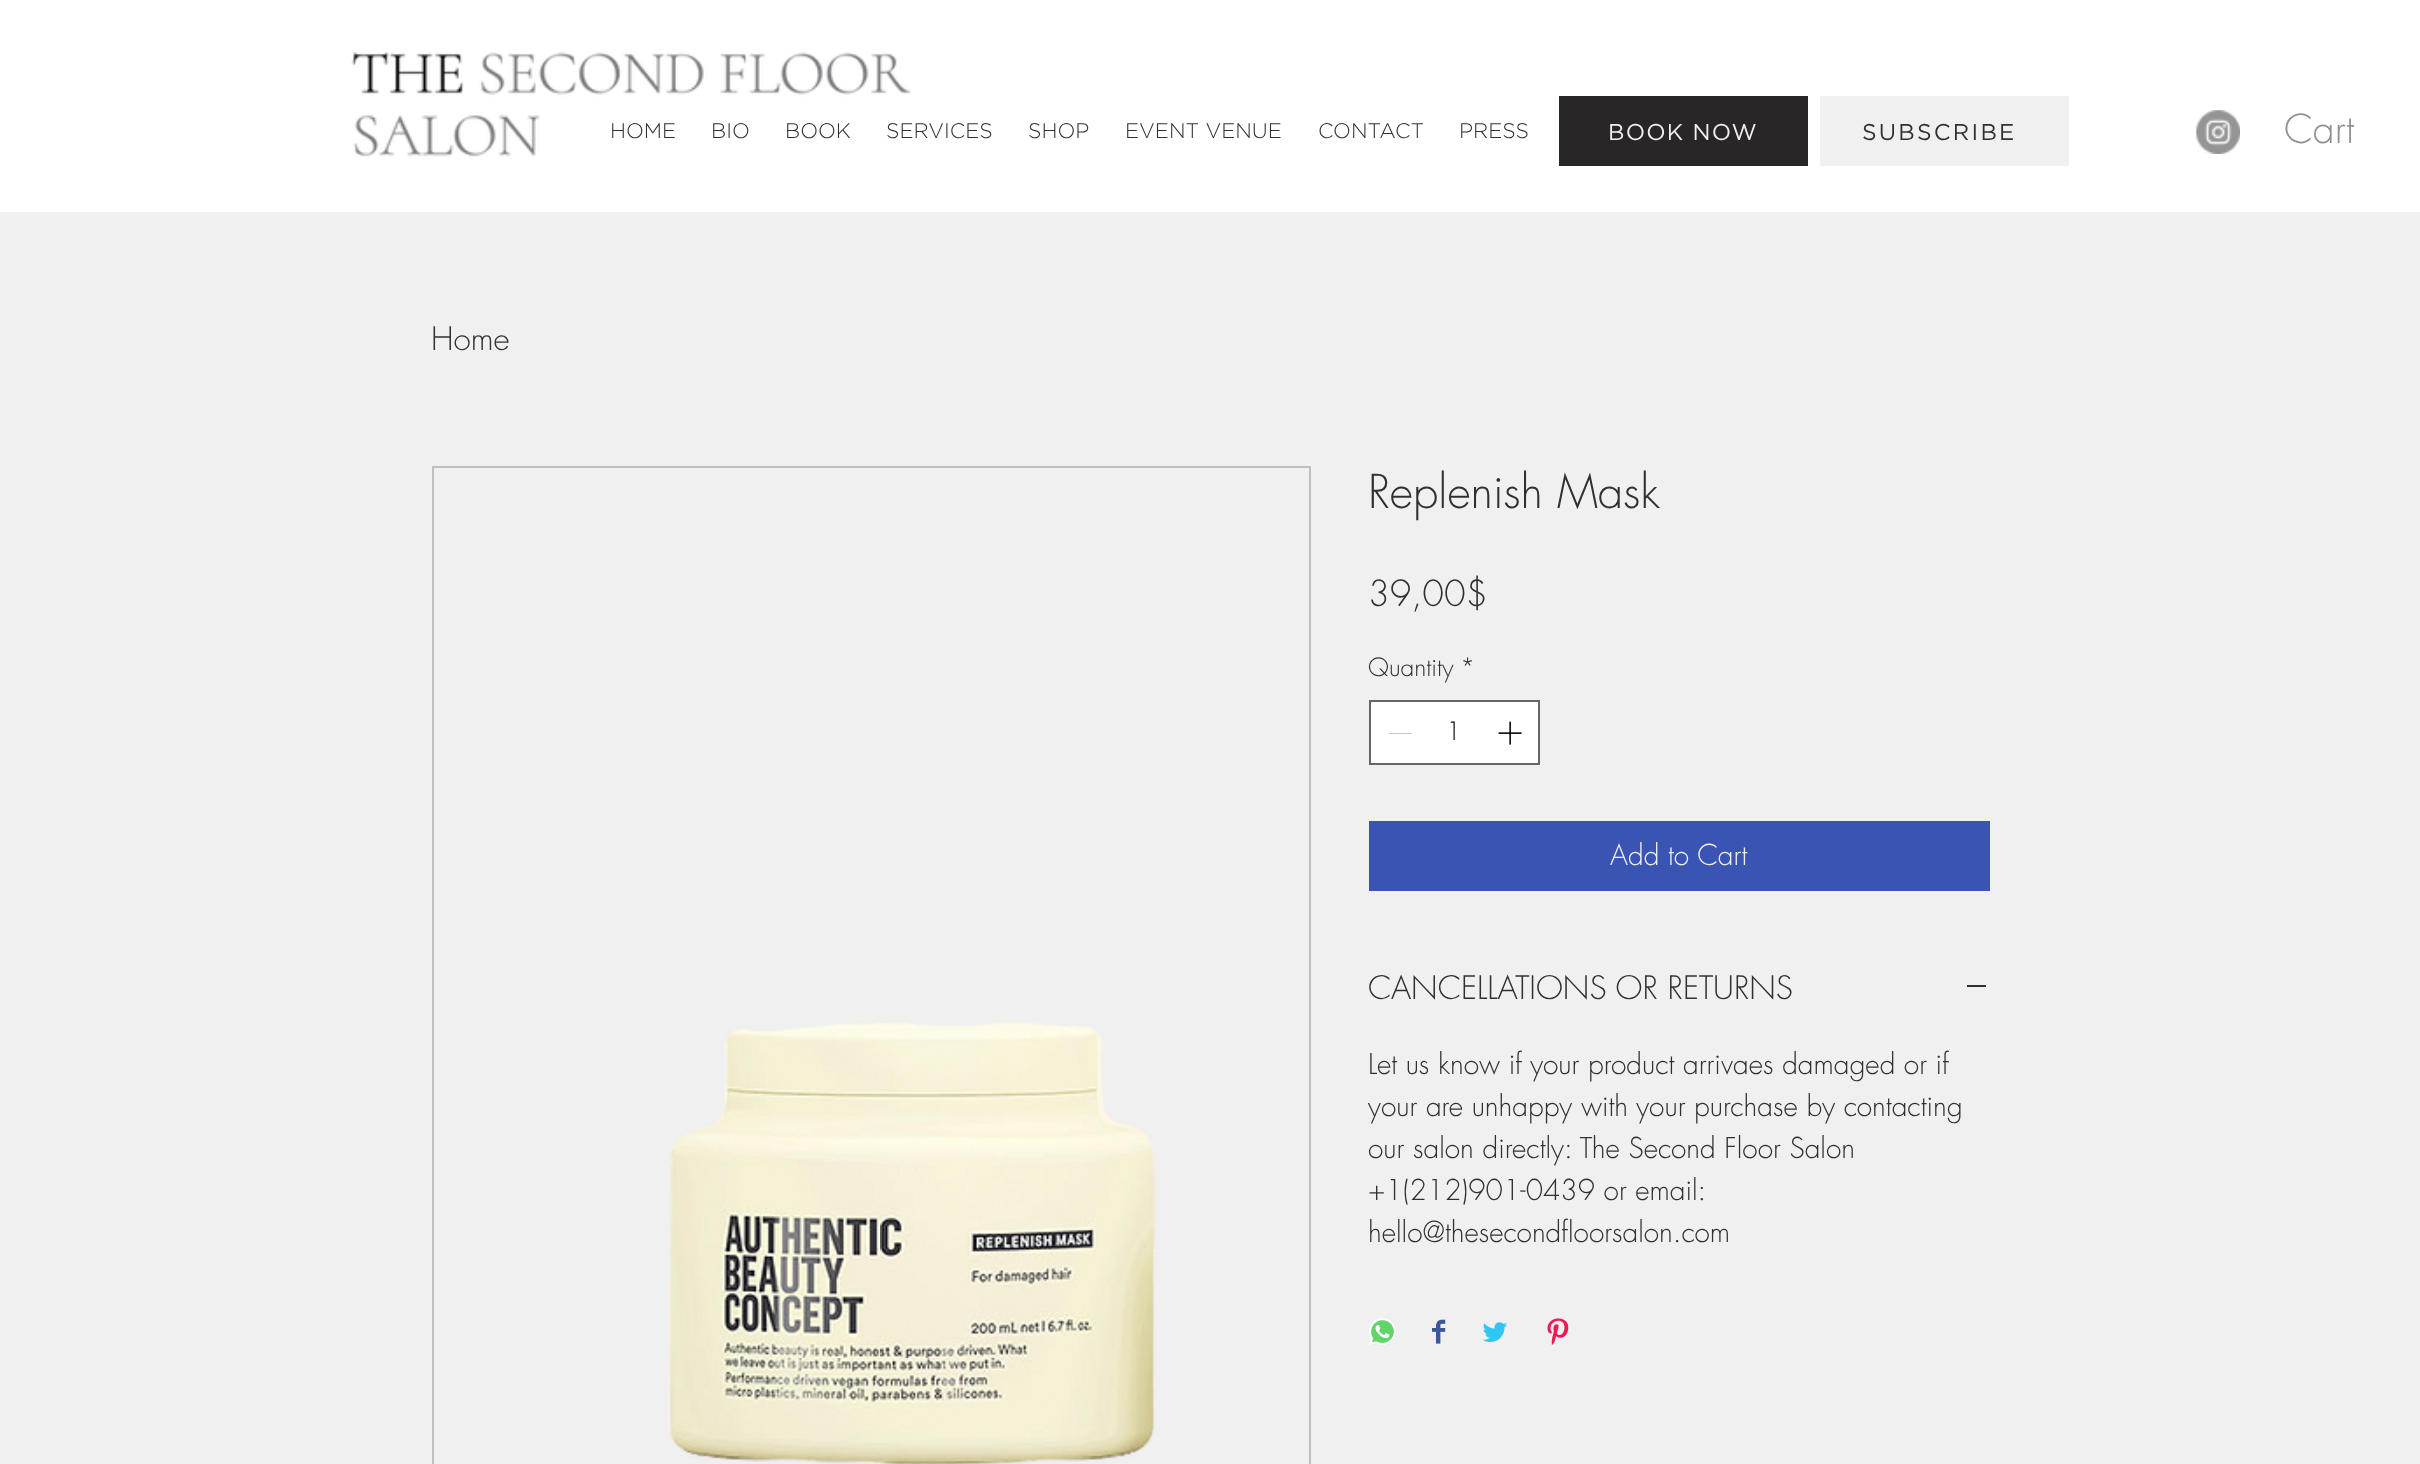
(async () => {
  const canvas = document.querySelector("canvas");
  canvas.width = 2420;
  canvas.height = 1464;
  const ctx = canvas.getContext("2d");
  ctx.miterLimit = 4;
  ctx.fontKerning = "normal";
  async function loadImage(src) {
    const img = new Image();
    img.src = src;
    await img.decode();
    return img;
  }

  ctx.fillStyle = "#f0f0f0";
  ctx.fillRect(0, 0, 2420, 1464);
  ctx.fillStyle = "#ffffff";
  ctx.fillRect(0, 0, 2420, 212);
  ctx.drawImage(await loadImage("img/1.png"), 351, 52, 560, 105);
  ctx.drawImage(await loadImage("img/2.png"), 2195, 110, 45, 44);
  ctx.fillStyle = "#282626";
  ctx.fillRect(1559, 96, 249, 70);
  ctx.fillStyle = "#f0f0f0";
  ctx.fillRect(1820, 96, 249, 70);
  ctx.strokeStyle = "#c0c0c0";
  ctx.lineWidth = 2;
  ctx.strokeRect(433, 467, 877, 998);
  ctx.drawImage(await loadImage("img/3.png"), 668, 1021, 489, 443);
  ctx.fillStyle = "#ffffff";
  ctx.beginPath();
  ctx.rect(1370, 701, 169, 63);
  ctx.fill();
  ctx.strokeStyle = "#666666";
  ctx.stroke();
  ctx.fillStyle = "#c7c7c7";
  ctx.fillRect(1389, 733, 23, 1);
  ctx.drawImage(await loadImage("img/4.png"), 1498, 721, 24, 24);
  ctx.fillStyle = "#3a54b4";
  ctx.fillRect(1369, 821, 621, 70);
  ctx.fillStyle = "#303030";
  ctx.fillRect(1967, 985, 19, 2);
  ctx.drawImage(await loadImage("img/5.png"), 1369, 1318, 27, 28);
  ctx.drawImage(await loadImage("img/6.png"), 1432, 1319, 14, 25);
  ctx.drawImage(await loadImage("img/7.png"), 1482, 1322, 25, 20);
  ctx.drawImage(await loadImage("img/8.png"), 1547, 1318, 22, 27);
  ctx.font = "300 39px futura";
  ctx.fillStyle = "#909090";
  ctx.fillText("Cart", 2284, 143);
  ctx.font = "300 21px Gotham";
  ctx.fillStyle = "#303030";
  for (const [text, x, y] of [
    ["HOME", 610, 138],
    ["BIO", 711, 138],
    ["BOOK", 785, 138],
    ["SERVICES", 886, 138],
    ["SHOP", 1028, 138],
    ["EVENT VENUE", 1125, 138],
    ["CONTACT", 1318, 138],
    ["PRESS", 1459, 138],
  ]) {
    ctx.fillText(text, x, y);
  }
  ctx.letterSpacing = "1.25px";
  ctx.font = "22.75px Gotham";
  ctx.fillStyle = "#f0f0f0";
  ctx.fillText("BOOK NOW", 1608, 140);
  ctx.letterSpacing = "2.25px";
  ctx.fillStyle = "#303030";
  ctx.fillText("SUBSCRIBE", 1862, 140);
  ctx.letterSpacing = "0px";
  ctx.font = "300 31.5px futura";
  ctx.fillText("Home", 431, 350);
  ctx.font = "300 45.5px futura";
  ctx.fillText("Replenish Mask", 1368, 508);
  ctx.font = "300 35px futura";
  ctx.fillText("39,00$", 1368, 606);
  ctx.font = "300 24.5px futura";
  ctx.fillText("Quantity", 1368, 676);
  ctx.fillText("*", 1460, 676);
  ctx.fillStyle = "#000000";
  ctx.fillText("1", 1446, 740);
  ctx.font = "300 28px futura";
  ctx.fillStyle = "#f0f0f0";
  ctx.fillText("Add to Cart", 1610, 865);
  ctx.font = "300 31.5px futura";
  ctx.fillStyle = "#303030";
  ctx.fillText("CANCELLATIONS OR RETURNS", 1368, 999);
  ctx.font = "300 28px futura";
  for (const [text, x, y] of [
    ["Let us know if your product arrivaes damaged or if", 1368, 1074],
    ["your are unhappy with your purchase by contacting", 1368, 1116],
    ["our salon directly: The Second Floor Salon", 1368, 1158],
    ["+1(212)901-0439 or email:", 1368, 1200],
    ["hello@thesecondfloorsalon.com", 1368, 1242],
  ]) {
    ctx.fillText(text, x, y);
  }
})();
